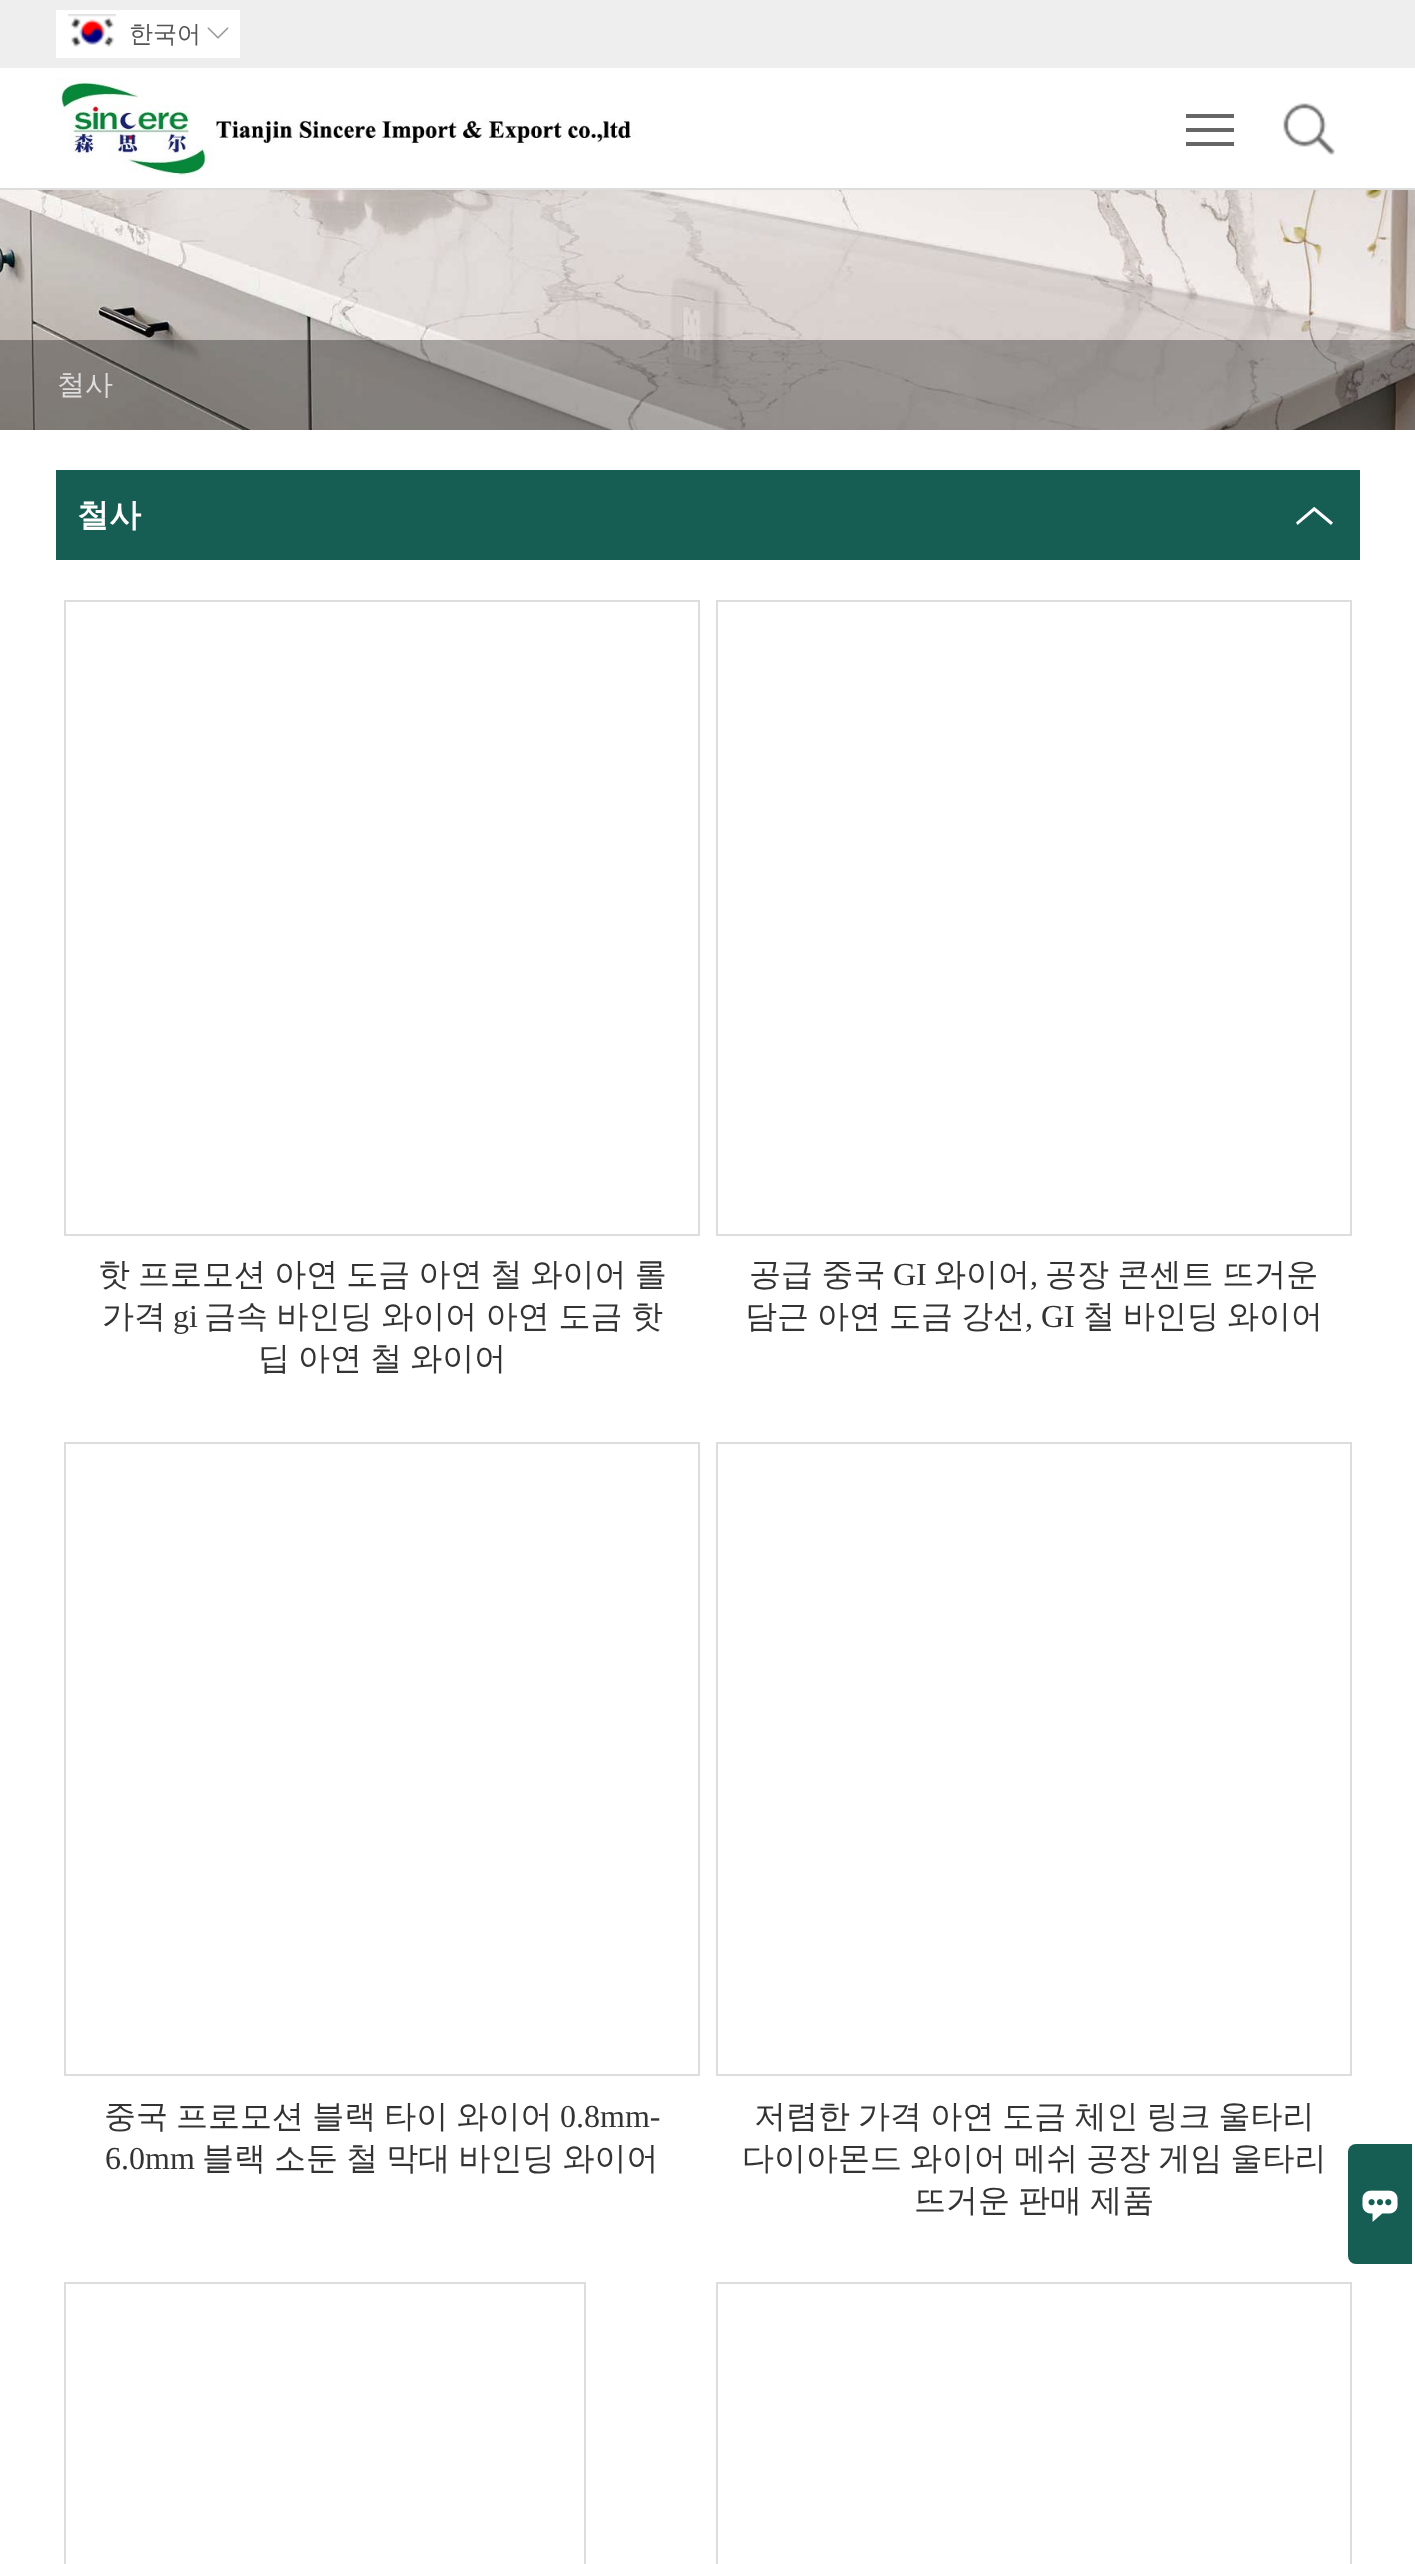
(async () => {
  const canvas = document.querySelector("canvas");
  canvas.width = 1415;
  canvas.height = 2564;
  const ctx = canvas.getContext("2d");
  ctx.miterLimit = 4;
  ctx.fontKerning = "normal";
  async function loadImage(src) {
    const img = new Image();
    img.src = src;
    await img.decode();
    return img;
  }
  let path;

  ctx.fillStyle = "#ffffff";
  ctx.fillRect(0, 0, 1415, 2564);
  ctx.fillStyle = "#eeeeee";
  ctx.fillRect(0, 0, 1415, 68);
  ctx.fillStyle = "#ffffff";
  ctx.fillRect(56, 10, 184, 48);
  ctx.drawImage(await loadImage("img/1.png"), 68, 14, 48, 33);
  ctx.drawImage(await loadImage("img/2.png"), 207, 27, 22, 12);
  ctx.fillStyle = "#dddddd";
  ctx.fillRect(0, 188, 1415, 2);
  ctx.drawImage(await loadImage("img/3.png"), 56, 78, 580, 100);
  for (const [x, y, w, h, color] of [
    [1186, 128, 48, 4, "#666666"],
    [1186, 114, 48, 4, "#666666"],
    [1186, 142, 48, 4, "#666666"],
  ]) {
    ctx.fillStyle = color;
    ctx.fillRect(x, y, w, h);
  }
  ctx.drawImage(await loadImage("img/4.png"), 1283, 103, 52, 52);
  ctx.drawImage(await loadImage("img/5.png"), 0, 190, 1415, 240);
  ctx.fillStyle = "rgba(0, 0, 0, 0.3)";
  ctx.fillRect(0, 340, 1415, 90);
  ctx.fillStyle = "#165e53";
  ctx.fillRect(56, 470, 1304, 90);
  ctx.fillStyle = "#ffffff";
  path = new Path2D("M1314.5 507L1333 522.5L1331 525L1312.5 509.5Z");
  ctx.fill(path);
  path = new Path2D("M1296 522.5L1314 507L1316 509.5L1297.5 525Z");
  ctx.fill(path);
  ctx.strokeStyle = "#dddddd";
  ctx.lineWidth = 2;
  ctx.strokeRect(65, 601, 634, 634);
  ctx.strokeRect(717, 601, 634, 634);
  ctx.strokeRect(65, 1443, 634, 632);
  ctx.strokeRect(717, 1443, 634, 632);
  ctx.strokeRect(65, 2283, 520, 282);
  ctx.strokeRect(717, 2283, 634, 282);
  ctx.fillStyle = "#165e53";
  ctx.beginPath();
  ctx.roundRect(1348, 2144, 64, 120, [8, 0, 0, 8]);
  ctx.fill();
  ctx.drawImage(await loadImage("img/6.png"), 1362, 2190, 36, 32);
  ctx.font = "500 24px WenQuanYi Zen Hei";
  ctx.fillStyle = "#555555";
  ctx.fillText("한국어", 129, 42);
  ctx.font = "500 28px WenQuanYi Zen Hei";
  ctx.fillStyle = "#dddddd";
  ctx.fillText("철사", 57, 394);
  ctx.font = "bold 32px WenQuanYi Zen Hei";
  ctx.fillStyle = "#ffffff";
  ctx.fillText("철사", 77, 526);
  ctx.wordSpacing = "-1.5px";
  ctx.font = "500 32px WenQuanYi Zen Hei";
  ctx.fillStyle = "#333333";
  ctx.fillText("핫 프로모션 아연 도금 아연 철 와이어 롤", 98, 1285);
  ctx.wordSpacing = "0px";
  ctx.fillText("가격", 102, 1327);
  ctx.font = "32px Liberation Serif";
  ctx.fillText("gi", 173, 1327);
  ctx.wordSpacing = "-1px";
  ctx.font = "500 32px WenQuanYi Zen Hei";
  ctx.fillText("금속 바인딩 와이어 아연 도금 핫", 204, 1327);
  ctx.wordSpacing = "-1.5px";
  ctx.fillText("딥 아연 철 와이어", 258, 1369);
  ctx.wordSpacing = "-1px";
  ctx.fillText("공급 중국", 749, 1285);
  ctx.wordSpacing = "0px";
  ctx.font = "32px Liberation Serif";
  ctx.fillText("GI", 893, 1285);
  ctx.font = "500 32px WenQuanYi Zen Hei";
  ctx.fillText("와이어", 934, 1285);
  ctx.font = "32px Liberation Serif";
  ctx.fillText(",", 1030, 1285);
  ctx.wordSpacing = "-1px";
  ctx.font = "500 32px WenQuanYi Zen Hei";
  ctx.fillText("공장 콘센트 뜨거운", 1045, 1285);
  ctx.wordSpacing = "0px";
  for (const [text, x, y] of [
    ["담근", 745, 1327],
    ["아연", 817, 1327],
    ["도금", 889, 1327],
    ["강선", 961, 1327],
  ]) {
    ctx.fillText(text, x, y);
  }
  ctx.font = "32px Liberation Serif";
  ctx.fillText(", GI", 1025, 1327);
  ctx.font = "500 32px WenQuanYi Zen Hei";
  for (const [text, x, y] of [
    ["철", 1083, 1327],
    ["바인딩", 1123, 1327],
    ["와이어", 1227, 1327],
  ]) {
    ctx.fillText(text, x, y);
  }
  ctx.wordSpacing = "-1.5px";
  ctx.fillText("중국 프로모션 블랙 타이 와이어", 104, 2127);
  ctx.wordSpacing = "0px";
  ctx.font = "32px Liberation Serif";
  ctx.fillText("0.8mm-", 560, 2127);
  ctx.fillText("6.0mm", 105, 2169);
  ctx.wordSpacing = "-1.5px";
  ctx.font = "500 32px WenQuanYi Zen Hei";
  for (const [text, x, y] of [
    ["블랙 소둔 철 막대 바인딩 와이어", 202, 2169],
    ["저렴한 가격 아연 도금 체인 링크 울타리", 754, 2127],
    ["다이아몬드 와이어 메쉬 공장 게임 울타리", 742, 2169],
    ["뜨거운 판매 제품", 914, 2211],
  ]) {
    ctx.fillText(text, x, y);
  }
})();
